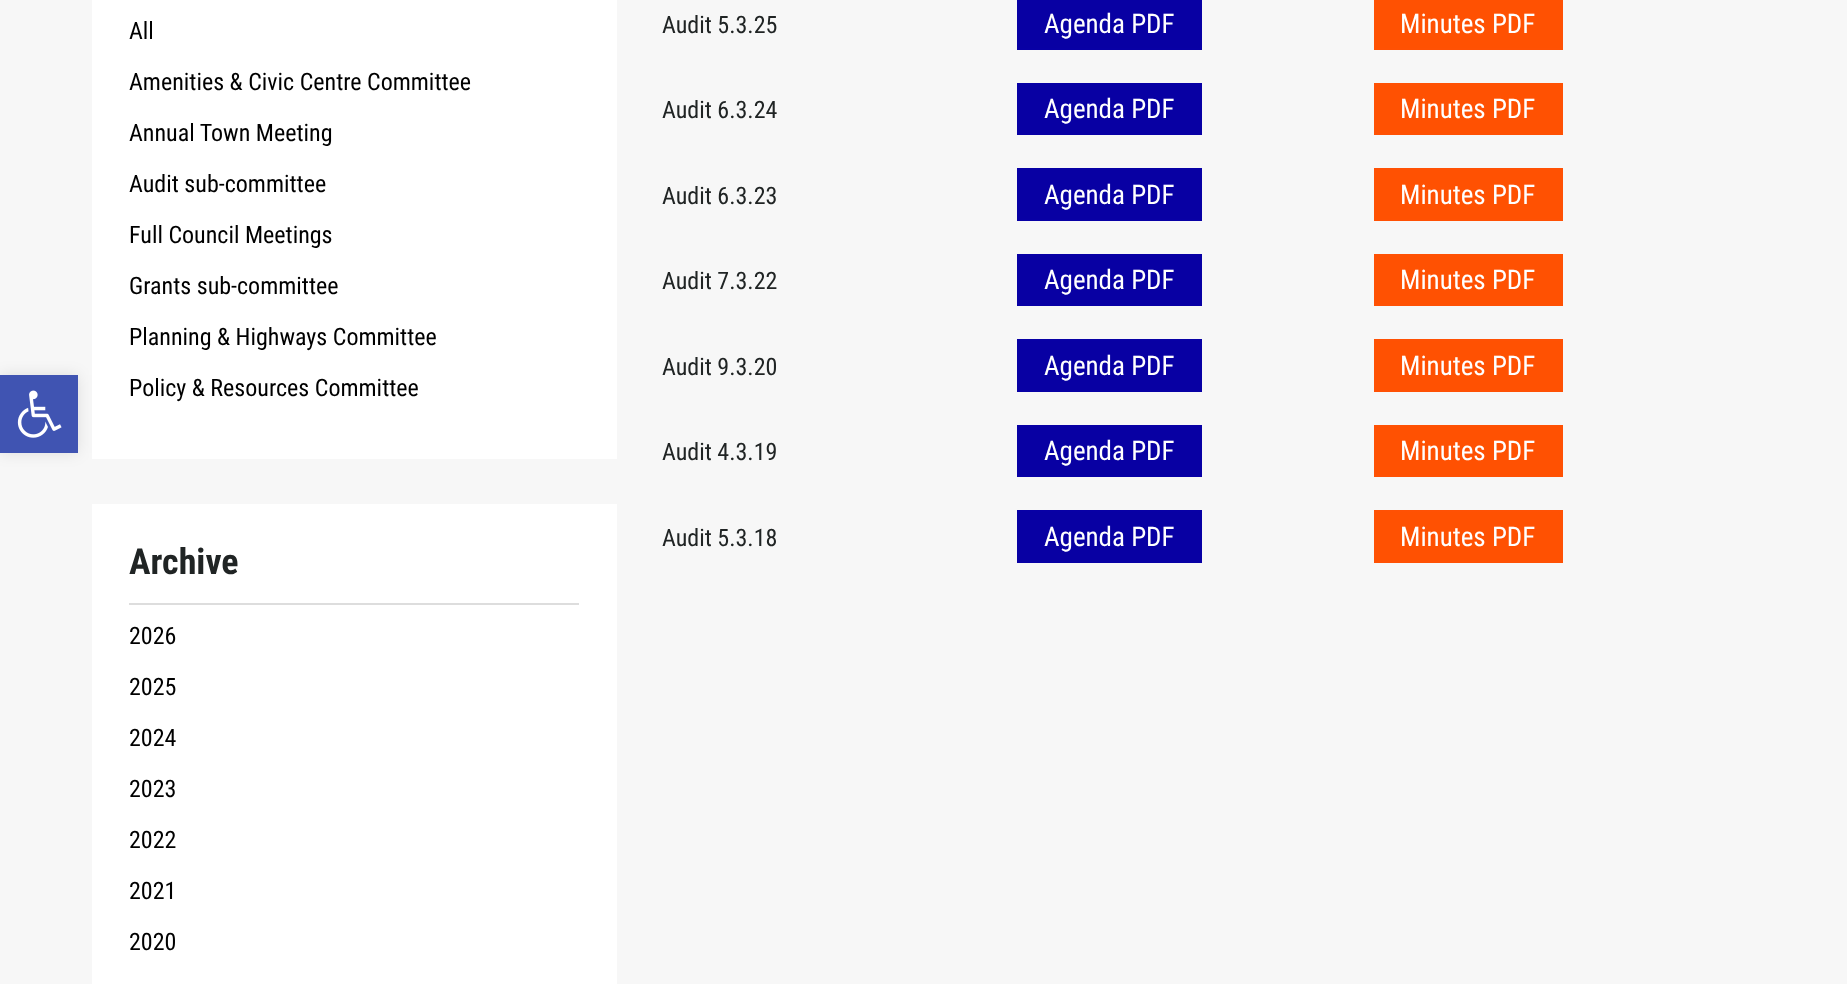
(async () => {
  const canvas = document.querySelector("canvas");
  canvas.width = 1847;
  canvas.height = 984;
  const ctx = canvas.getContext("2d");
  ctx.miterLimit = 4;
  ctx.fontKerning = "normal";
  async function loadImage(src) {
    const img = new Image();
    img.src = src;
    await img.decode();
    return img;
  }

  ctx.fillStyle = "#f7f7f7";
  ctx.fillRect(0, 0, 1847, 984);
  ctx.fillStyle = "#ffffff";
  ctx.fillRect(92, 0, 525, 459);
  ctx.fillStyle = "rgba(0, 0, 0, 0.1)";
  ctx.filter = "blur(7.5px)";
  ctx.beginPath();
  ctx.rect(0, 375, 78, 78);
  ctx.fill();
  ctx.filter = "none";
  ctx.fillStyle = "#4054b2";
  ctx.fillRect(0, 375, 78, 78);
  ctx.drawImage(await loadImage("img/1.png"), 17, 390, 45, 48);
  ctx.fillStyle = "#ffffff";
  ctx.fillRect(92, 504, 525, 480);
  ctx.fillStyle = "#dddddd";
  ctx.fillRect(129, 603, 450, 2);
  ctx.fillStyle = "#0800a3";
  ctx.beginPath();
  ctx.rect(1018, -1, 183, 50);
  ctx.fill();
  ctx.strokeStyle = "#0800a5";
  ctx.lineWidth = 2;
  ctx.stroke();
  ctx.fillStyle = "#ff5102";
  ctx.beginPath();
  ctx.rect(1375, -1, 187, 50);
  ctx.fill();
  ctx.strokeStyle = "#ff5104";
  ctx.stroke();
  ctx.fillStyle = "#0800a3";
  ctx.beginPath();
  ctx.rect(1018, 84, 183, 50);
  ctx.fill();
  ctx.strokeStyle = "#0800a5";
  ctx.stroke();
  ctx.fillStyle = "#ff5102";
  ctx.beginPath();
  ctx.rect(1375, 84, 187, 50);
  ctx.fill();
  ctx.strokeStyle = "#ff5104";
  ctx.stroke();
  ctx.fillStyle = "#0800a3";
  ctx.beginPath();
  ctx.rect(1018, 169, 183, 51);
  ctx.fill();
  ctx.strokeStyle = "#0800a5";
  ctx.stroke();
  ctx.fillStyle = "#ff5102";
  ctx.beginPath();
  ctx.rect(1375, 169, 187, 51);
  ctx.fill();
  ctx.strokeStyle = "#ff5104";
  ctx.stroke();
  ctx.fillStyle = "#0800a3";
  ctx.beginPath();
  ctx.rect(1018, 255, 183, 50);
  ctx.fill();
  ctx.strokeStyle = "#0800a5";
  ctx.stroke();
  ctx.fillStyle = "#ff5102";
  ctx.beginPath();
  ctx.rect(1375, 255, 187, 50);
  ctx.fill();
  ctx.strokeStyle = "#ff5104";
  ctx.stroke();
  ctx.fillStyle = "#0800a3";
  ctx.beginPath();
  ctx.rect(1018, 340, 183, 51);
  ctx.fill();
  ctx.strokeStyle = "#0800a5";
  ctx.stroke();
  ctx.fillStyle = "#ff5102";
  ctx.beginPath();
  ctx.rect(1375, 340, 187, 51);
  ctx.fill();
  ctx.strokeStyle = "#ff5104";
  ctx.stroke();
  ctx.fillStyle = "#0800a3";
  ctx.beginPath();
  ctx.rect(1018, 426, 183, 50);
  ctx.fill();
  ctx.strokeStyle = "#0800a5";
  ctx.stroke();
  ctx.fillStyle = "#ff5102";
  ctx.beginPath();
  ctx.rect(1375, 426, 187, 50);
  ctx.fill();
  ctx.strokeStyle = "#ff5104";
  ctx.stroke();
  ctx.fillStyle = "#0800a3";
  ctx.beginPath();
  ctx.rect(1018, 511, 183, 51);
  ctx.fill();
  ctx.strokeStyle = "#0800a5";
  ctx.stroke();
  ctx.fillStyle = "#ff5102";
  ctx.beginPath();
  ctx.rect(1375, 511, 187, 51);
  ctx.fill();
  ctx.strokeStyle = "#ff5104";
  ctx.stroke();
  ctx.font = "24px Roboto Condensed";
  ctx.fillStyle = "#000000";
  for (const [text, x, y] of [
    ["All", 129, 39],
    ["Amenities & Civic Centre Committee", 129, 90],
    ["Annual Town Meeting", 129, 141],
    ["Audit sub-committee", 129, 192],
    ["Full Council Meetings", 129, 243],
    ["Grants sub-committee", 129, 294],
    ["Planning & Highways Committee", 129, 345],
    ["Policy & Resources Committee", 129, 396],
  ]) {
    ctx.fillText(text, x, y);
  }
  ctx.font = "bold 36px Roboto Condensed";
  ctx.fillStyle = "#202424";
  ctx.fillText("Archive", 129, 574);
  ctx.font = "24px Roboto Condensed";
  ctx.fillStyle = "#000000";
  for (const [text, x, y] of [
    ["2026", 129, 644],
    ["2025", 129, 695],
    ["2024", 129, 746],
    ["2023", 129, 797],
    ["2022", 129, 848],
    ["2021", 129, 899],
    ["2020", 129, 950],
  ]) {
    ctx.fillText(text, x, y);
  }
  ctx.fillStyle = "#202424";
  ctx.fillText("Audit 5.3.25", 662, 33);
  ctx.font = "27px Roboto Condensed";
  ctx.fillStyle = "#ffffff";
  ctx.fillText("Agenda PDF", 1044, 33);
  ctx.fillText("Minutes PDF", 1400, 33);
  ctx.font = "24px Roboto Condensed";
  ctx.fillStyle = "#202424";
  ctx.fillText("Audit 6.3.24", 662, 118);
  ctx.font = "27px Roboto Condensed";
  ctx.fillStyle = "#ffffff";
  ctx.fillText("Agenda PDF", 1044, 118);
  ctx.fillText("Minutes PDF", 1400, 118);
  ctx.font = "24px Roboto Condensed";
  ctx.fillStyle = "#202424";
  ctx.fillText("Audit 6.3.23", 662, 204);
  ctx.font = "27px Roboto Condensed";
  ctx.fillStyle = "#ffffff";
  ctx.fillText("Agenda PDF", 1044, 204);
  ctx.fillText("Minutes PDF", 1400, 204);
  ctx.font = "24px Roboto Condensed";
  ctx.fillStyle = "#202424";
  ctx.fillText("Audit 7.3.22", 662, 289);
  ctx.font = "27px Roboto Condensed";
  ctx.fillStyle = "#ffffff";
  ctx.fillText("Agenda PDF", 1044, 289);
  ctx.fillText("Minutes PDF", 1400, 289);
  ctx.font = "24px Roboto Condensed";
  ctx.fillStyle = "#202424";
  ctx.fillText("Audit 9.3.20", 662, 375);
  ctx.font = "27px Roboto Condensed";
  ctx.fillStyle = "#ffffff";
  ctx.fillText("Agenda PDF", 1044, 375);
  ctx.fillText("Minutes PDF", 1400, 375);
  ctx.font = "24px Roboto Condensed";
  ctx.fillStyle = "#202424";
  ctx.fillText("Audit 4.3.19", 662, 460);
  ctx.font = "27px Roboto Condensed";
  ctx.fillStyle = "#ffffff";
  ctx.fillText("Agenda PDF", 1044, 460);
  ctx.fillText("Minutes PDF", 1400, 460);
  ctx.font = "24px Roboto Condensed";
  ctx.fillStyle = "#202424";
  ctx.fillText("Audit 5.3.18", 662, 546);
  ctx.font = "27px Roboto Condensed";
  ctx.fillStyle = "#ffffff";
  ctx.fillText("Agenda PDF", 1044, 546);
  ctx.fillText("Minutes PDF", 1400, 546);
})();
